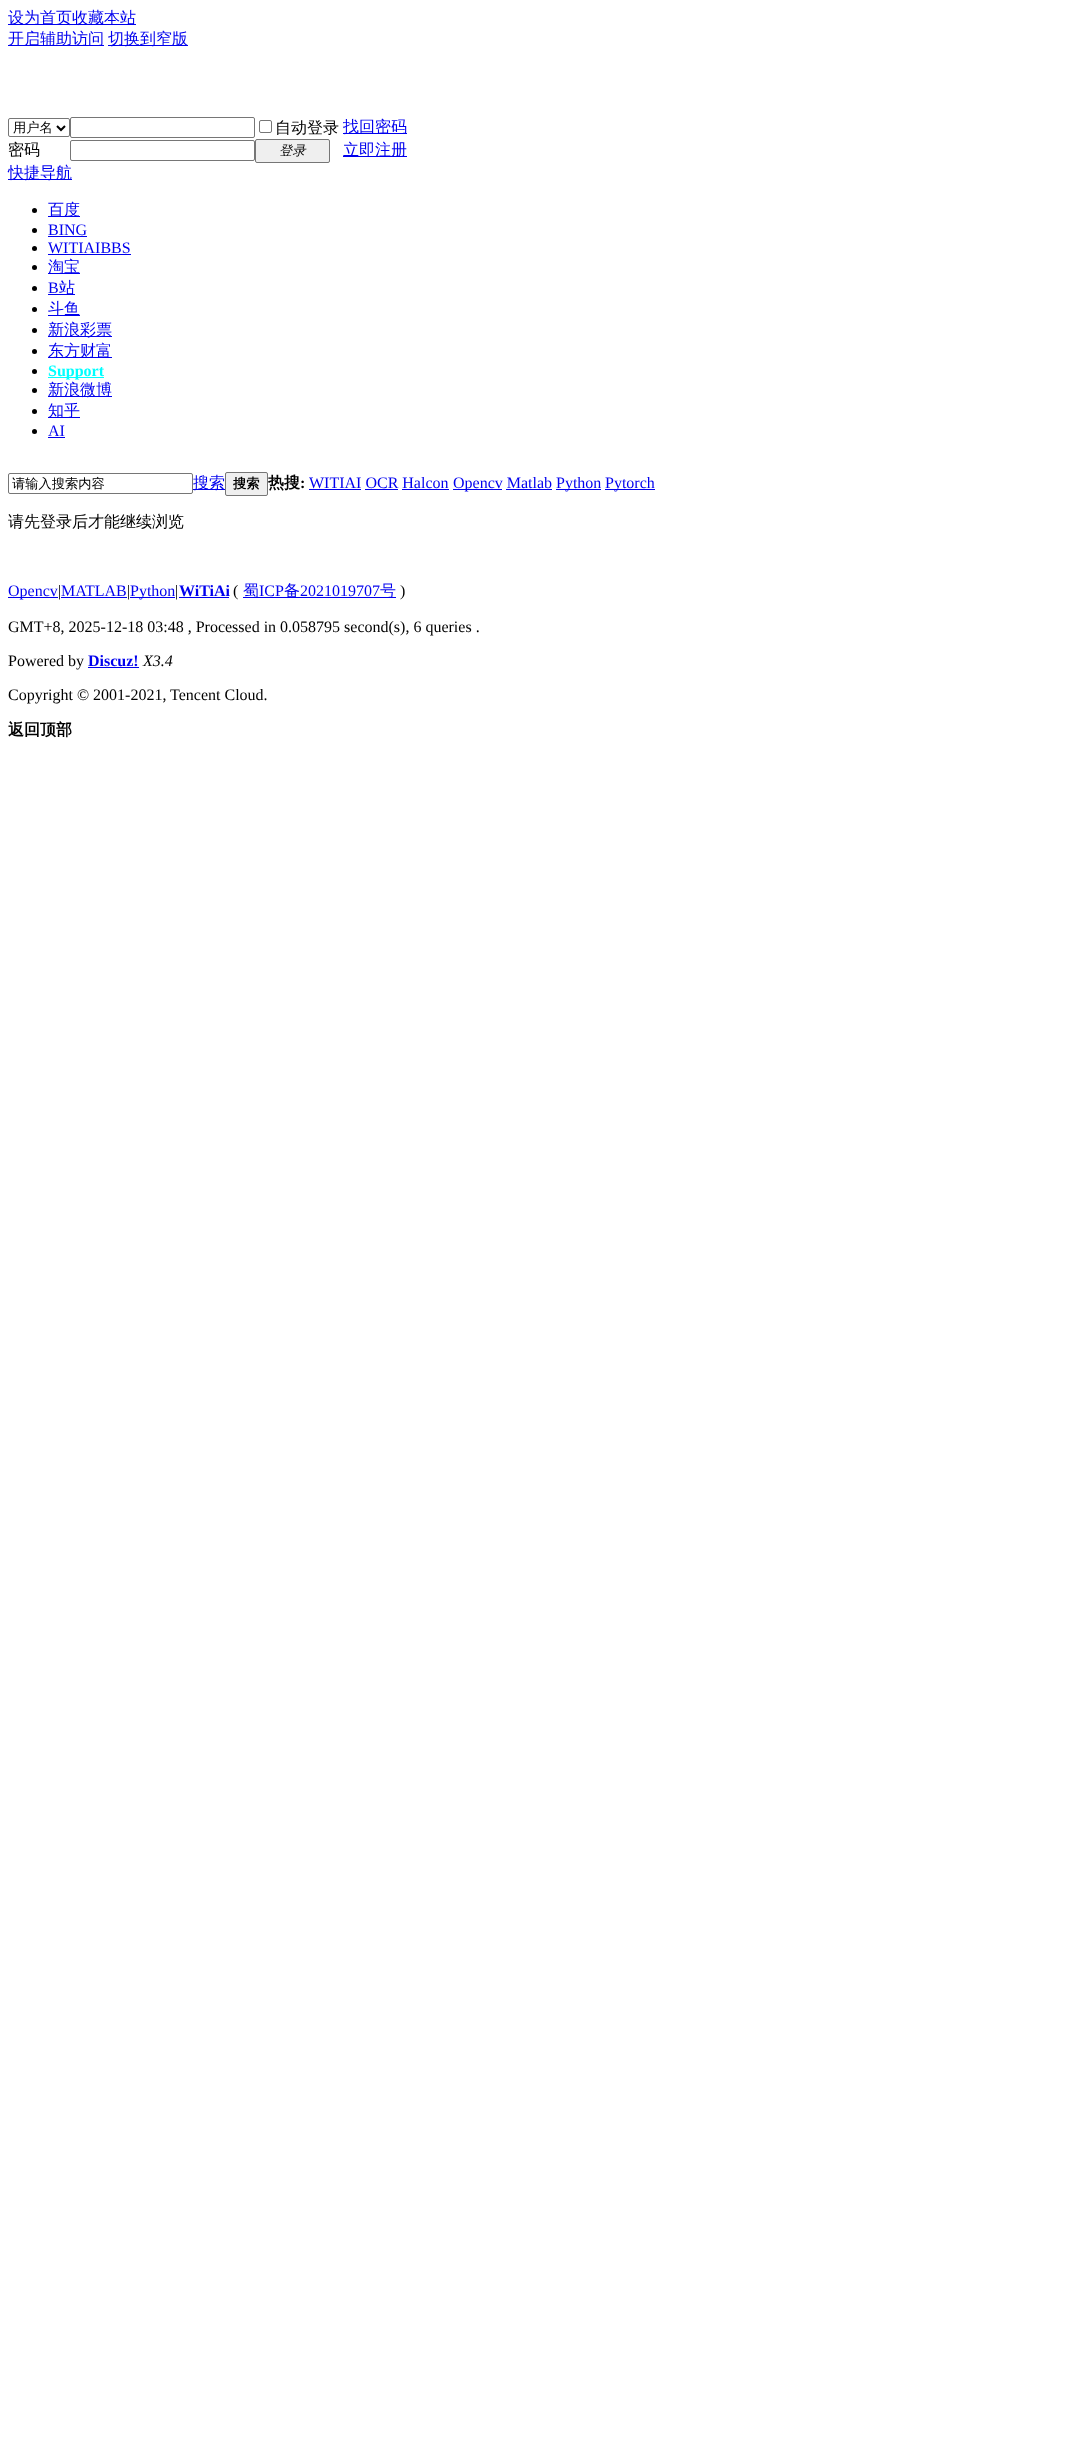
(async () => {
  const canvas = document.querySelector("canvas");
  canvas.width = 1069;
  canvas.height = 2437;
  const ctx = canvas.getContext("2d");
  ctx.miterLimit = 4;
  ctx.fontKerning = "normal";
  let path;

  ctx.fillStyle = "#ffffff";
  ctx.fillRect(0, 0, 1069, 2437);
  for (const [x, y, w, h, color] of [
    [8, 24, 128, 1, "#0000ee"],
    [8, 45, 96, 1, "#0000ee"],
    [108, 45, 80, 1, "#0000ee"],
  ]) {
    ctx.fillStyle = color;
    ctx.fillRect(x, y, w, h);
  }
  ctx.beginPath();
  ctx.roundRect(8.5, 118.5, 61, 18, 1.5);
  ctx.strokeStyle = "#767676";
  ctx.stroke();
  path = new Path2D("M57 126L61 130L65 126");
  ctx.strokeStyle = "#000000";
  ctx.lineWidth = 2;
  ctx.stroke(path);
  ctx.beginPath();
  ctx.roundRect(70.5, 117.5, 184, 20, 1.5);
  ctx.strokeStyle = "#767676";
  ctx.lineWidth = 1;
  ctx.stroke();
  ctx.beginPath();
  ctx.roundRect(259.5, 120.5, 12, 12, 1.5);
  ctx.stroke();
  ctx.fillRect(343, 133, 64, 1);
  ctx.beginPath();
  ctx.roundRect(70.5, 140.5, 184, 20, 1.5);
  ctx.stroke();
  ctx.fillStyle = "#efefef";
  ctx.beginPath();
  ctx.roundRect(255.5, 139.5, 74, 23, 1.5);
  ctx.fill();
  ctx.stroke();
  ctx.fillStyle = "#0000ee";
  ctx.fillRect(343, 156, 64, 1);
  ctx.fillRect(8, 179, 64, 1);
  ctx.fillStyle = "#000000";
  ctx.beginPath();
  ctx.arc(34.5, 210.5, 2.5, 0, Math.PI * 2);
  ctx.fill();
  ctx.fillStyle = "#0000ee";
  ctx.fillRect(48, 216, 32, 1);
  ctx.fillStyle = "#000000";
  ctx.beginPath();
  ctx.arc(34.5, 230.5, 2.5, 0, Math.PI * 2);
  ctx.fill();
  ctx.fillStyle = "#0000ee";
  ctx.fillRect(48, 236, 39, 1);
  ctx.fillStyle = "#000000";
  ctx.beginPath();
  ctx.arc(34.5, 248.5, 2.5, 0, Math.PI * 2);
  ctx.fill();
  ctx.fillStyle = "#0000ee";
  ctx.fillRect(48, 254, 83, 1);
  ctx.fillStyle = "#000000";
  ctx.beginPath();
  ctx.arc(34.5, 267.5, 2.5, 0, Math.PI * 2);
  ctx.fill();
  ctx.fillStyle = "#0000ee";
  ctx.fillRect(48, 273, 32, 1);
  ctx.fillStyle = "#000000";
  ctx.beginPath();
  ctx.arc(34.5, 288.5, 2.5, 0, Math.PI * 2);
  ctx.fill();
  ctx.fillStyle = "#0000ee";
  ctx.fillRect(48, 294, 27, 1);
  ctx.fillStyle = "#000000";
  ctx.beginPath();
  ctx.arc(34.5, 309.5, 2.5, 0, Math.PI * 2);
  ctx.fill();
  ctx.fillStyle = "#0000ee";
  ctx.fillRect(48, 315, 32, 1);
  ctx.fillStyle = "#000000";
  ctx.beginPath();
  ctx.arc(34.5, 330.5, 2.5, 0, Math.PI * 2);
  ctx.fill();
  ctx.fillStyle = "#0000ee";
  ctx.fillRect(48, 336, 64, 1);
  ctx.fillStyle = "#000000";
  ctx.beginPath();
  ctx.arc(34.5, 351.5, 2.5, 0, Math.PI * 2);
  ctx.fill();
  ctx.fillStyle = "#0000ee";
  ctx.fillRect(48, 357, 64, 1);
  ctx.fillStyle = "#000000";
  ctx.beginPath();
  ctx.arc(34.5, 371.5, 2.5, 0, Math.PI * 2);
  ctx.fill();
  ctx.fillStyle = "#00ffff";
  ctx.fillRect(48, 377, 56, 1);
  ctx.fillStyle = "#000000";
  ctx.beginPath();
  ctx.arc(34.5, 390.5, 2.5, 0, Math.PI * 2);
  ctx.fill();
  ctx.fillStyle = "#0000ee";
  ctx.fillRect(48, 396, 64, 1);
  ctx.fillStyle = "#000000";
  ctx.beginPath();
  ctx.arc(34.5, 411.5, 2.5, 0, Math.PI * 2);
  ctx.fill();
  ctx.fillStyle = "#0000ee";
  ctx.fillRect(48, 417, 32, 1);
  ctx.fillStyle = "#000000";
  ctx.beginPath();
  ctx.arc(34.5, 431.5, 2.5, 0, Math.PI * 2);
  ctx.fill();
  ctx.fillStyle = "#0000ee";
  ctx.fillRect(48, 437, 17, 1);
  ctx.beginPath();
  ctx.roundRect(8.5, 473.5, 184, 20, 1.5);
  ctx.stroke();
  ctx.fillRect(193, 489, 32, 1);
  ctx.fillStyle = "#efefef";
  ctx.beginPath();
  ctx.roundRect(225.5, 472.5, 42, 23, 1.5);
  ctx.fill();
  ctx.stroke();
  for (const [x, y, w, h, color] of [
    [309, 489, 52, 1, "#0000ee"],
    [453, 489, 49, 1, "#0000ee"],
    [556, 489, 45, 1, "#0000ee"],
    [605, 489, 50, 1, "#0000ee"],
    [365, 489, 33, 1, "#0000ee"],
    [402, 489, 47, 1, "#0000ee"],
    [506, 489, 46, 1, "#0000ee"],
    [8, 597, 50, 1, "#0000ee"],
    [61, 597, 66, 1, "#0000ee"],
    [130, 597, 45, 1, "#0000ee"],
    [179, 597, 50, 1, "#0000ee"],
    [243, 597, 153, 1, "#0000ee"],
    [88, 667, 51, 1, "#0000ee"],
  ]) {
    ctx.fillStyle = color;
    ctx.fillRect(x, y, w, h);
  }
  ctx.font = "500 16px WenQuanYi Zen Hei";
  for (const [text, x, y] of [
    ["设为首页收藏本站", 8, 23],
    ["开启辅助访问", 8, 44],
    ["切换到窄版", 108, 44],
  ]) {
    ctx.fillText(text, x, y);
  }
  ctx.font = "500 13.25px WenQuanYi Zen Hei";
  ctx.fillStyle = "#000000";
  ctx.fillText("用户名", 13, 132);
  ctx.font = "500 16px WenQuanYi Zen Hei";
  ctx.fillText("自动登录", 275, 133);
  ctx.fillStyle = "#0000ee";
  ctx.fillText("找回密码", 343, 132);
  ctx.fillStyle = "#000000";
  ctx.fillText("密码", 8, 155);
  ctx.font = "italic 500 13.25px WenQuanYi Zen Hei";
  ctx.fillText("登录", 279, 155);
  ctx.font = "500 16px WenQuanYi Zen Hei";
  ctx.fillStyle = "#0000ee";
  for (const [text, x, y] of [
    ["立即注册", 343, 155],
    ["快捷导航", 8, 178],
    ["百度", 48, 215],
  ]) {
    ctx.fillText(text, x, y);
  }
  ctx.font = "16px Liberation Serif";
  ctx.fillText("BING", 48, 235);
  ctx.fillText("WITIAIBBS", 48, 253);
  ctx.font = "500 16px WenQuanYi Zen Hei";
  ctx.fillText("淘宝", 48, 272);
  ctx.font = "16px Liberation Serif";
  ctx.fillText("B", 48, 293);
  ctx.font = "500 16px WenQuanYi Zen Hei";
  for (const [text, x, y] of [
    ["站", 59, 293],
    ["斗鱼", 48, 314],
    ["新浪彩票", 48, 335],
    ["东方财富", 48, 356],
  ]) {
    ctx.fillText(text, x, y);
  }
  ctx.font = "bold 16px Liberation Serif";
  ctx.fillStyle = "#00ffff";
  ctx.fillText("Support", 48, 376);
  ctx.font = "500 16px WenQuanYi Zen Hei";
  ctx.fillStyle = "#0000ee";
  ctx.fillText("新浪微博", 48, 395);
  ctx.fillText("知乎", 48, 416);
  ctx.font = "16px Liberation Serif";
  ctx.fillText("AI", 48, 436);
  ctx.font = "500 13.25px WenQuanYi Zen Hei";
  ctx.fillStyle = "#000000";
  ctx.fillText("请输入搜索内容", 12, 488);
  ctx.font = "500 16px WenQuanYi Zen Hei";
  ctx.fillStyle = "#0000ee";
  ctx.fillText("搜索", 193, 488);
  ctx.font = "bold 13.25px WenQuanYi Zen Hei";
  ctx.fillStyle = "#000000";
  ctx.fillText("搜索", 233, 488);
  ctx.font = "bold 16px WenQuanYi Zen Hei";
  ctx.fillText("热搜", 268, 488);
  ctx.font = "bold 16px Liberation Serif";
  ctx.fillText(":", 300, 488);
  ctx.font = "16px Liberation Serif";
  ctx.fillStyle = "#0000ee";
  for (const [text, x, y] of [
    ["WITIAI OCR Halcon", 309, 488],
    ["Opencv Matlab", 453, 488],
    ["Python", 556, 488],
    ["Pytorch", 605, 488],
  ]) {
    ctx.fillText(text, x, y);
  }
  ctx.font = "500 16px WenQuanYi Zen Hei";
  ctx.fillStyle = "#000000";
  ctx.fillText("请先登录后才能继续浏览", 8, 527);
  ctx.font = "16px Liberation Serif";
  ctx.fillStyle = "#0000ee";
  ctx.fillText("Opencv", 8, 596);
  ctx.fillStyle = "#000000";
  ctx.fillText("|", 58, 596);
  ctx.fillStyle = "#0000ee";
  ctx.fillText("MATLAB", 61, 596);
  ctx.fillStyle = "#000000";
  ctx.fillText("|", 127, 596);
  ctx.fillStyle = "#0000ee";
  ctx.fillText("Python", 130, 596);
  ctx.fillStyle = "#000000";
  ctx.fillText("|", 175, 596);
  ctx.font = "bold 16px Liberation Serif";
  ctx.fillStyle = "#0000ee";
  ctx.fillText("WiTiAi", 179, 596);
  ctx.font = "16px Liberation Serif";
  ctx.fillStyle = "#000000";
  ctx.fillText("(", 233, 596);
  ctx.font = "500 16px WenQuanYi Zen Hei";
  ctx.fillStyle = "#0000ee";
  ctx.fillText("蜀", 243, 596);
  ctx.font = "16px Liberation Serif";
  ctx.fillText("ICP", 259, 596);
  ctx.font = "500 16px WenQuanYi Zen Hei";
  ctx.fillText("备", 284, 596);
  ctx.font = "16px Liberation Serif";
  ctx.fillText("2021019707", 300, 596);
  ctx.font = "500 16px WenQuanYi Zen Hei";
  ctx.fillText("号", 380, 596);
  ctx.font = "16px Liberation Serif";
  ctx.fillStyle = "#000000";
  for (const [text, x, y] of [
    [")", 400, 596],
    ["GMT+8, 2025-12-18 03:48 , Processed in 0.058795 second(s), 6 queries .", 8, 632],
    ["Powered by", 8, 666],
  ]) {
    ctx.fillText(text, x, y);
  }
  ctx.font = "bold 16px Liberation Serif";
  ctx.fillStyle = "#0000ee";
  ctx.fillText("Discuz!", 88, 666);
  ctx.font = "italic 16px Liberation Serif";
  ctx.fillStyle = "#000000";
  ctx.fillText("X3.4", 143, 666);
  ctx.font = "16px Liberation Serif";
  ctx.fillText("Copyright © 2001-2021, Tencent Cloud.", 8, 700);
  ctx.font = "bold 16px WenQuanYi Zen Hei";
  ctx.fillText("返回顶部", 8, 735);
})();
